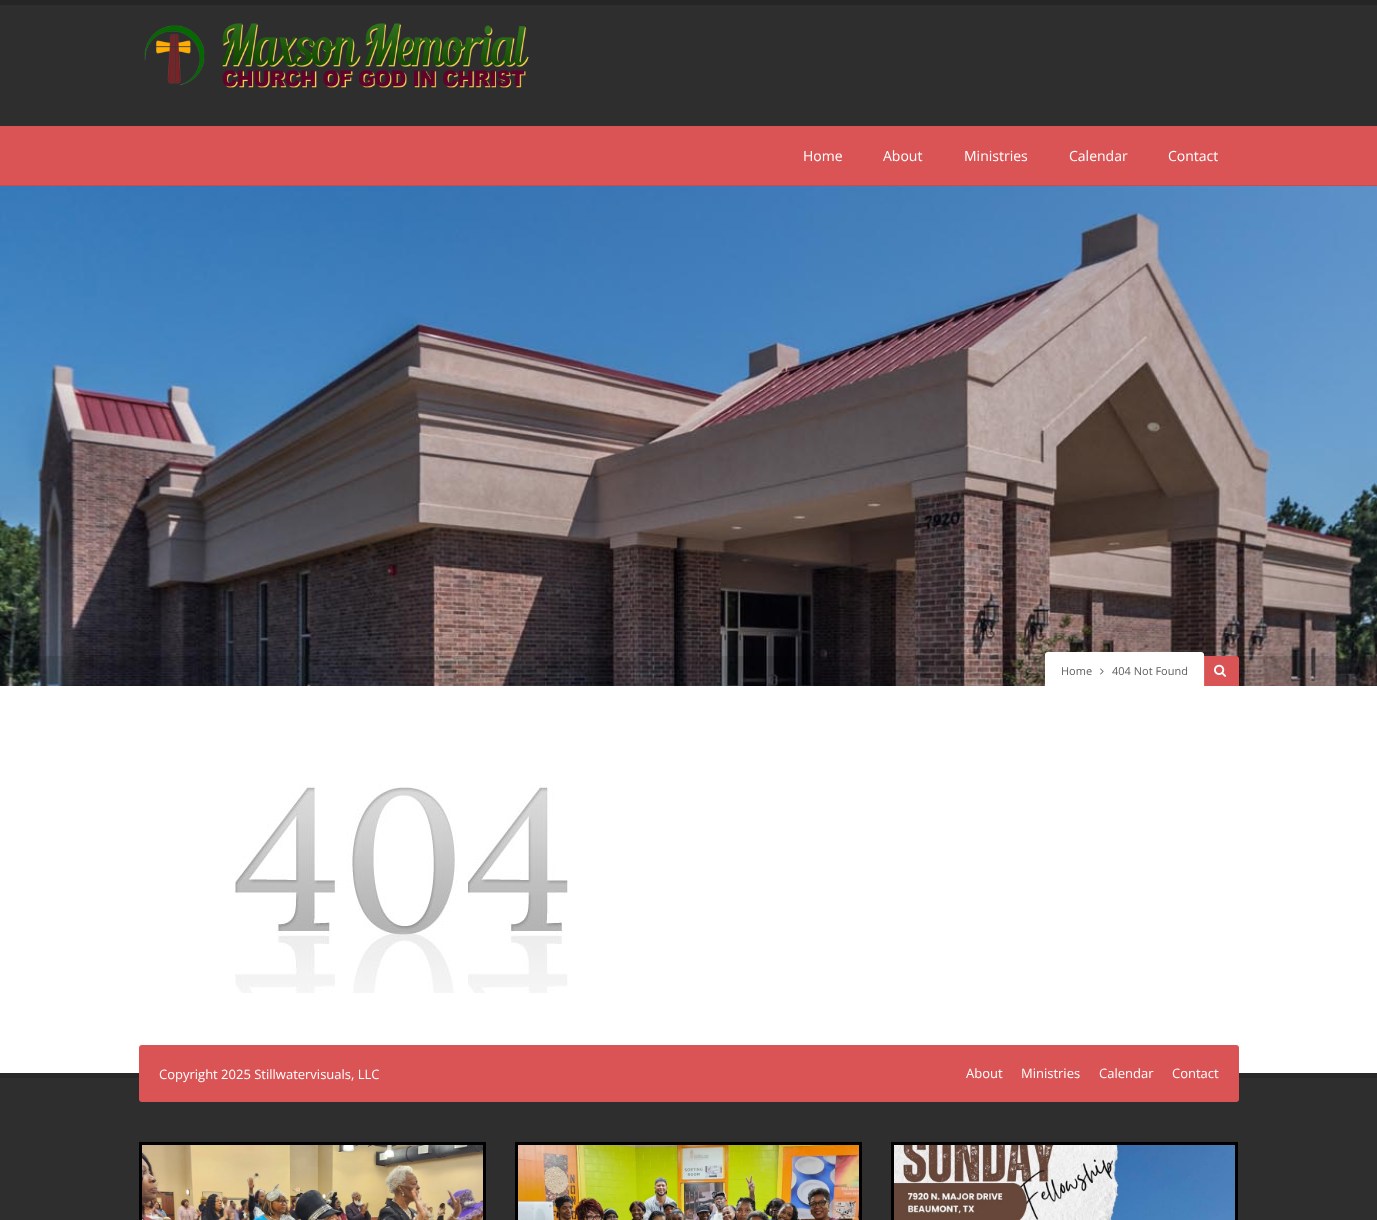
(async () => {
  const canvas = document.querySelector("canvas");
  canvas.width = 1377;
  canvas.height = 1220;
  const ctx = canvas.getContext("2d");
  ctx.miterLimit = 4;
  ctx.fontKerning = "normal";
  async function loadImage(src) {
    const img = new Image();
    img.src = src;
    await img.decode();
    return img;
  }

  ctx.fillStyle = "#ffffff";
  ctx.fillRect(0, 0, 1377, 1220);
  ctx.fillStyle = "#2e2e2e";
  ctx.fillRect(0, 5, 1377, 121);
  ctx.fillStyle = "#252525";
  ctx.fillRect(0, 0, 1377, 5);
  ctx.drawImage(await loadImage("img/1.png"), 144, 23, 385, 65);
  ctx.fillStyle = "#da5455";
  ctx.fillRect(0, 126, 1377, 59);
  ctx.fillStyle = "#c94d4e";
  ctx.fillRect(0, 185, 1377, 1);
  ctx.drawImage(await loadImage("img/2.png"), 0, 186, 1377, 500);
  ctx.fillStyle = "rgba(0, 0, 0, 0.1)";
  ctx.fillRect(0, 656, 1377, 30);
  ctx.fillStyle = "#ffffff";
  ctx.beginPath();
  ctx.roundRect(1045, 652, 159, 35, [3, 3, 0, 0]);
  ctx.fill();
  ctx.drawImage(await loadImage("img/3.png"), 1100, 668, 4, 7);
  ctx.fillStyle = "#da5455";
  ctx.beginPath();
  ctx.roundRect(1204, 656, 35, 30, [0, 3, 0, 0]);
  ctx.fill();
  ctx.fillStyle = "#de6566";
  ctx.fillRect(1204, 656, 1, 30);
  ctx.drawImage(await loadImage("img/4.png"), 1214, 664, 12, 13);
  ctx.drawImage(await loadImage("img/5.png"), 235, 785, 333, 208);
  ctx.fillStyle = "#2e2e2e";
  ctx.fillRect(0, 1078, 1377, 142);
  ctx.fillStyle = "#282828";
  ctx.fillRect(0, 1073, 1377, 5);
  ctx.fillStyle = "#da5455";
  ctx.beginPath();
  ctx.roundRect(139, 1045, 1100, 57, 3);
  ctx.fill();
  ctx.drawImage(await loadImage("img/6.png"), 139, 1142, 347, 78);
  ctx.drawImage(await loadImage("img/7.png"), 515, 1142, 347, 78);
  ctx.drawImage(await loadImage("img/8.png"), 891, 1142, 347, 78);
  ctx.font = "14px Open Sans";
  ctx.fillStyle = "#ffffff";
  for (const [text, x, y] of [
    ["Home", 803, 161],
    ["About", 883, 161],
    ["Ministries", 964, 161],
    ["Calendar", 1069, 161],
    ["Contact", 1168, 161],
  ]) {
    ctx.fillText(text, x, y);
  }
  ctx.font = "11px Open Sans";
  ctx.fillStyle = "#606060";
  ctx.fillText("Home", 1061, 675);
  ctx.fillText("404 Not Found", 1112, 675);
  ctx.font = "13px Open Sans";
  ctx.fillStyle = "#ffffff";
  for (const [text, x, y] of [
    ["Copyright 2025 Stillwatervisuals, LLC", 159, 1079],
    ["About", 966, 1078],
    ["Ministries", 1021, 1078],
    ["Calendar", 1099, 1078],
    ["Contact", 1172, 1078],
  ]) {
    ctx.fillText(text, x, y);
  }
})();
